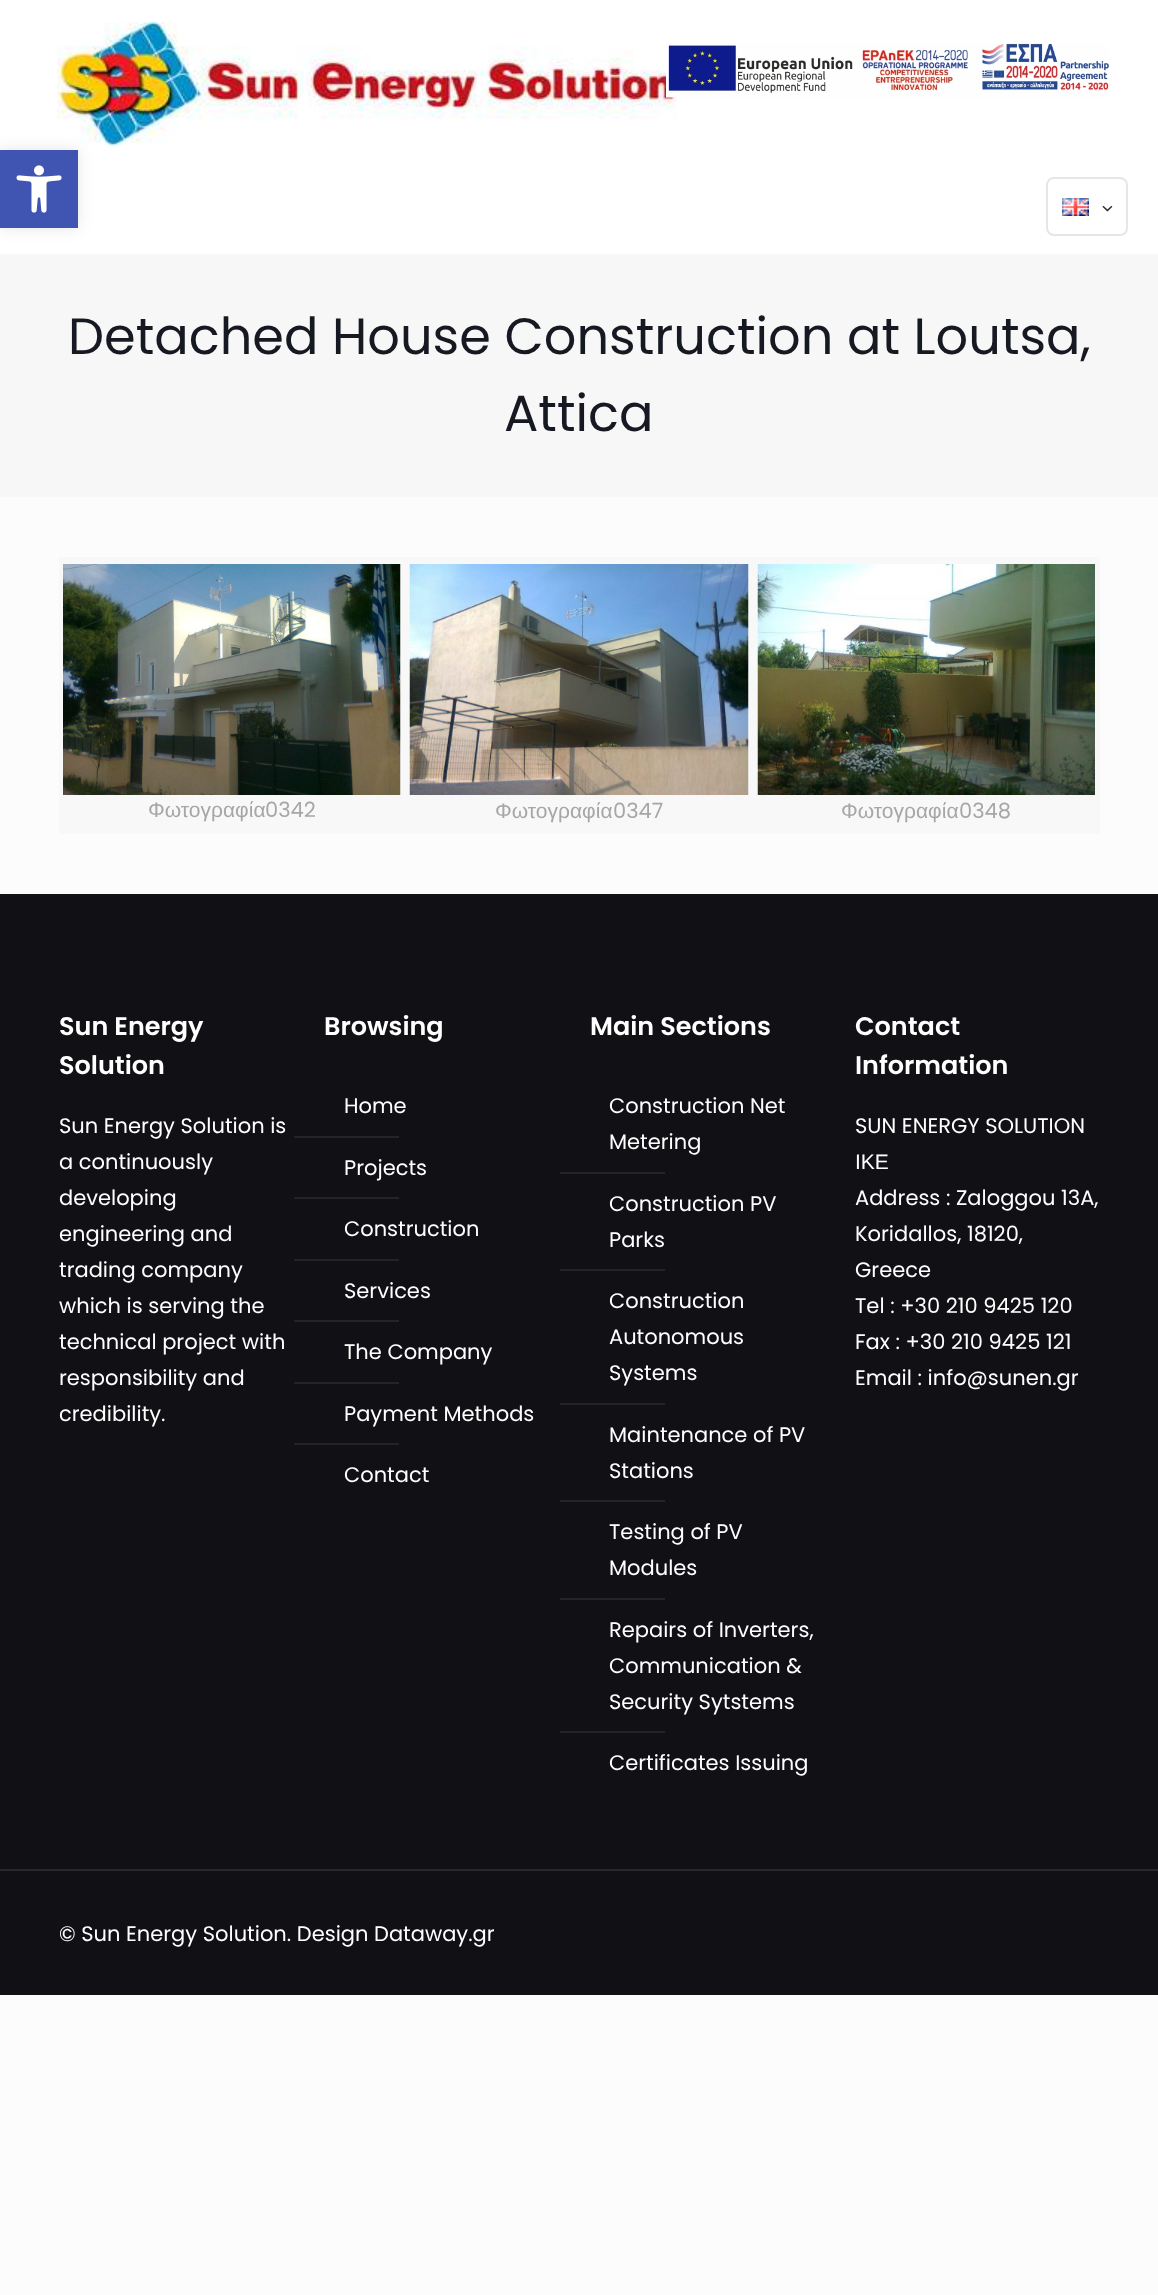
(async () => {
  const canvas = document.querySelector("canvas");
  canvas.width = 1158;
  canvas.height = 2295;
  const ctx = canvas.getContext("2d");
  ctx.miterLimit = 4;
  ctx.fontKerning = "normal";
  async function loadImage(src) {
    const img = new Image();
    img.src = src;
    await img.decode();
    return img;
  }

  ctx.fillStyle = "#fcfcfc";
  ctx.fillRect(0, 0, 1158, 2295);
  ctx.fillStyle = "#ffffff";
  ctx.fillRect(0, 0, 1158, 254);
  ctx.drawImage(await loadImage("img/2.png"), 57, 22, 620, 124);
  ctx.fillStyle = "rgba(0, 0, 0, 0.1)";
  ctx.filter = "blur(7.5px)";
  ctx.beginPath();
  ctx.rect(0, 150, 78, 78);
  ctx.fill();
  ctx.filter = "none";
  ctx.fillStyle = "#4054b2";
  ctx.fillRect(0, 150, 78, 78);
  ctx.drawImage(await loadImage("img/1.png"), 16, 165, 46, 48);
  ctx.drawImage(await loadImage("img/3.png"), 666, 43, 443, 55);
  ctx.beginPath();
  ctx.roundRect(1047, 178, 80, 57, 7);
  ctx.strokeStyle = "#e6e6e6";
  ctx.lineWidth = 2;
  ctx.stroke();
  ctx.drawImage(await loadImage("img/4.png"), 1062, 198, 27, 18);
  ctx.drawImage(await loadImage("img/5.png"), 1102, 205, 11, 7);
  ctx.fillStyle = "#f7f7f7";
  ctx.fillRect(0, 254, 1158, 243);
  ctx.fillStyle = "#f8f8f8";
  ctx.fillRect(59, 557, 1041, 277);
  ctx.drawImage(await loadImage("img/6.png"), 63, 564, 338, 231);
  ctx.drawImage(await loadImage("img/7.png"), 409, 564, 340, 231);
  ctx.drawImage(await loadImage("img/8.png"), 757, 564, 338, 231);
  for (const [x, y, w, h, color] of [
    [0, 894, 1158, 1101, "#101015"],
    [294, 1136, 105, 2, "#232328"],
    [294, 1197, 105, 2, "#232328"],
    [294, 1259, 105, 2, "#232328"],
    [294, 1320, 105, 2, "#232328"],
    [294, 1382, 105, 2, "#232328"],
    [294, 1443, 105, 2, "#232328"],
    [560, 1172, 105, 2, "#232328"],
    [560, 1269, 105, 2, "#232328"],
    [560, 1403, 105, 2, "#232328"],
    [560, 1500, 105, 2, "#232328"],
    [560, 1598, 105, 2, "#232328"],
    [560, 1731, 105, 2, "#232328"],
    [0, 1869, 1158, 2, "#28282c"],
  ]) {
    ctx.fillStyle = color;
    ctx.fillRect(x, y, w, h);
  }
  ctx.font = "51px Poppins";
  ctx.fillStyle = "#161922";
  ctx.fillText("Detached House Construction at Loutsa,", 68, 354);
  ctx.fillText("Attica", 504, 431);
  ctx.font = "21px Liberation Sans";
  ctx.fillStyle = "#a6a6a6";
  ctx.fillText("Φωτογραφία", 148, 817);
  ctx.font = "21px Poppins";
  ctx.fillText("0342", 265, 817);
  ctx.font = "21px Liberation Sans";
  ctx.fillText("Φωτογραφία", 495, 818);
  ctx.font = "21px Poppins";
  ctx.fillText("0347", 613, 818);
  ctx.font = "21px Liberation Sans";
  ctx.fillText("Φωτογραφία", 841, 818);
  ctx.font = "21px Poppins";
  ctx.fillText("0348", 959, 818);
  ctx.font = "600 25.5px Poppins";
  ctx.fillStyle = "#ffffff";
  ctx.fillText("Sun Energy", 59, 1035);
  ctx.fillText("Solution", 59, 1074);
  ctx.font = "21px Poppins";
  for (const [text, x, y] of [
    ["Sun Energy Solution is", 59, 1133],
    ["a continuously", 59, 1169],
    ["developing", 59, 1205],
    ["engineering and", 59, 1241],
    ["trading company", 59, 1277],
    ["which is serving the", 59, 1313],
    ["technical project with", 59, 1349],
    ["responsibility and", 59, 1385],
    ["credibility.", 59, 1421],
  ]) {
    ctx.fillText(text, x, y);
  }
  ctx.font = "600 25.5px Poppins";
  ctx.fillText("Browsing", 324, 1035);
  ctx.font = "21px Poppins";
  for (const [text, x, y] of [
    ["Home", 344, 1113],
    ["Projects", 344, 1175],
    ["Construction", 344, 1236],
    ["Services", 344, 1298],
    ["The Company", 344, 1359],
    ["Payment Methods", 344, 1421],
    ["Contact", 344, 1482],
  ]) {
    ctx.fillText(text, x, y);
  }
  ctx.font = "600 25.5px Poppins";
  ctx.fillText("Main Sections", 590, 1035);
  ctx.font = "21px Poppins";
  for (const [text, x, y] of [
    ["Construction Net", 609, 1113],
    ["Metering", 609, 1149],
    ["Construction PV", 609, 1211],
    ["Parks", 609, 1247],
    ["Construction", 609, 1308],
    ["Autonomous", 609, 1344],
    ["Systems", 609, 1380],
    ["Maintenance of PV", 609, 1442],
    ["Stations", 609, 1478],
    ["Testing of PV", 609, 1539],
    ["Modules", 609, 1575],
    ["Repairs of Inverters,", 609, 1637],
    ["Communication &", 609, 1673],
    ["Security Sytstems", 609, 1709],
    ["Certificates Issuing", 609, 1770],
  ]) {
    ctx.fillText(text, x, y);
  }
  ctx.font = "600 25.5px Poppins";
  ctx.fillText("Contact", 855, 1035);
  ctx.fillText("Information", 855, 1074);
  ctx.font = "21px Poppins";
  ctx.fillText("SUN ENERGY SOLUTION", 855, 1133);
  ctx.font = "21px Liberation Sans";
  ctx.fillText("ΙΚΕ", 855, 1169);
  ctx.font = "21px Poppins";
  for (const [text, x, y] of [
    ["Address : Zaloggou 13A,", 855, 1205],
    ["Koridallos, 18120,", 855, 1241],
    ["Greece", 855, 1277],
    ["Tel : +30 210 9425 120", 855, 1313],
    ["Fax : +30 210 9425 121", 855, 1349],
    ["Email : info@sunen.gr", 855, 1385],
    ["© Sun Energy Solution. Design Dataway.gr", 59, 1941],
  ]) {
    ctx.fillText(text, x, y);
  }
})();
